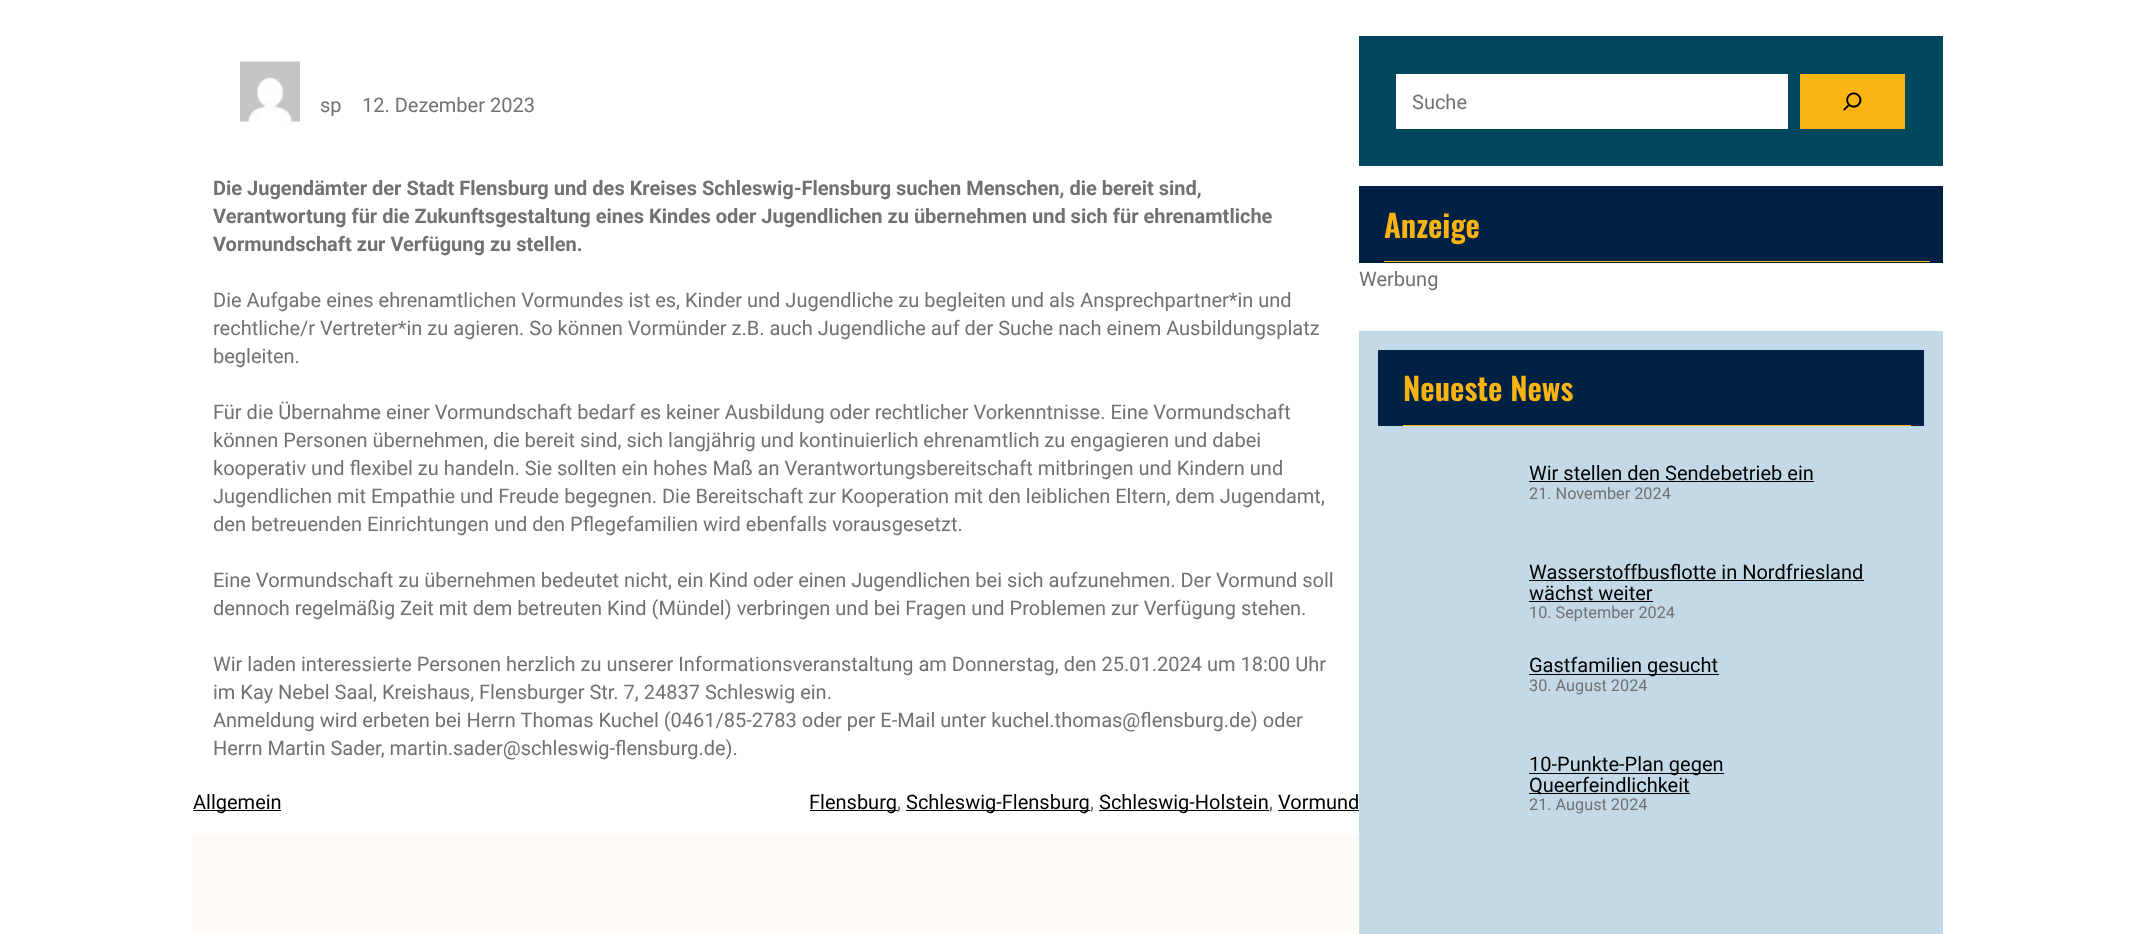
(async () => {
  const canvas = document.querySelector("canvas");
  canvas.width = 2134;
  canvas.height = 934;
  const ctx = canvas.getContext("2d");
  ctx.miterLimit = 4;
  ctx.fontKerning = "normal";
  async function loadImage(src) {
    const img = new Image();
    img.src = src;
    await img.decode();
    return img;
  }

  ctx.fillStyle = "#ffffff";
  ctx.fillRect(0, 0, 2134, 934);
  ctx.drawImage(await loadImage("img/1.png"), 240, 61, 60, 61);
  for (const [x, y, w, h, color] of [
    [193, 810, 88, 1, "#000000"],
    [810, 810, 88, 1, "#000000"],
    [906, 810, 184, 1, "#000000"],
    [1099, 810, 170, 1, "#000000"],
    [1278, 810, 81, 1, "#000000"],
    [193, 834, 1166, 100, "#fefaf6"],
    [1359, 36, 584, 130, "#00475d"],
    [1396, 74, 392, 55, "#ffffff"],
    [1800, 74, 105, 55, "#fab412"],
  ]) {
    ctx.fillStyle = color;
    ctx.fillRect(x, y, w, h);
  }
  ctx.drawImage(await loadImage("img/2.png"), 1843, 92, 19, 19);
  for (const [x, y, w, h, color] of [
    [1359, 186, 584, 77, "#002143"],
    [1384, 261, 546, 1, "#fab412"],
    [1359, 331, 584, 603, "#c3d9e7"],
    [1378, 350, 546, 76, "#002143"],
    [1403, 425, 508, 1, "#fab412"],
    [1529, 481, 285, 1, "#000000"],
    [1529, 580, 335, 1, "#000000"],
    [1529, 601, 124, 1, "#000000"],
    [1529, 674, 190, 1, "#000000"],
    [1529, 773, 195, 1, "#000000"],
    [1529, 793, 161, 1, "#000000"],
  ]) {
    ctx.fillStyle = color;
    ctx.fillRect(x, y, w, h);
  }
  ctx.font = "20px Roboto";
  ctx.fillStyle = "#717171";
  ctx.fillText("sp", 320, 112);
  ctx.fillText("12. Dezember 2023", 362, 112);
  ctx.font = "bold 20px Roboto";
  for (const [text, x, y] of [
    ["Die Jugendämter der Stadt Flensburg und des Kreises Schleswig-Flensburg suchen Menschen, die bereit sind,", 213, 195],
    ["Verantwortung für die Zukunftsgestaltung eines Kindes oder Jugendlichen zu übernehmen und sich für ehrenamtliche", 213, 223],
    ["Vormundschaft zur Verfügung zu stellen.", 213, 251],
  ]) {
    ctx.fillText(text, x, y);
  }
  ctx.font = "20px Roboto";
  for (const [text, x, y] of [
    ["Die Aufgabe eines ehrenamtlichen Vormundes ist es, Kinder und Jugendliche zu begleiten und als Ansprechpartner*in und", 213, 307],
    ["rechtliche/r Vertreter*in zu agieren. So können Vormünder z.B. auch Jugendliche auf der Suche nach einem Ausbildungsplatz", 213, 335],
    ["begleiten.", 213, 363],
    ["Für die Übernahme einer Vormundschaft bedarf es keiner Ausbildung oder rechtlicher Vorkenntnisse. Eine Vormundschaft", 213, 419],
    ["können Personen übernehmen, die bereit sind, sich langjährig und kontinuierlich ehrenamtlich zu engagieren und dabei", 213, 447],
    ["kooperativ und flexibel zu handeln. Sie sollten ein hohes Maß an Verantwortungsbereitschaft mitbringen und Kindern und", 213, 475],
    ["Jugendlichen mit Empathie und Freude begegnen. Die Bereitschaft zur Kooperation mit den leiblichen Eltern, dem Jugendamt,", 213, 503],
    ["den betreuenden Einrichtungen und den Pflegefamilien wird ebenfalls vorausgesetzt.", 213, 531],
    ["Eine Vormundschaft zu übernehmen bedeutet nicht, ein Kind oder einen Jugendlichen bei sich aufzunehmen. Der Vormund soll", 213, 587],
    ["dennoch regelmäßig Zeit mit dem betreuten Kind (Mündel) verbringen und bei Fragen und Problemen zur Verfügung stehen.", 213, 615],
    ["Wir laden interessierte Personen herzlich zu unserer Informationsveranstaltung am Donnerstag, den 25.01.2024 um 18:00 Uhr", 213, 671],
    ["im Kay Nebel Saal, Kreishaus, Flensburger Str. 7, 24837 Schleswig ein.", 213, 699],
    ["Anmeldung wird erbeten bei Herrn Thomas Kuchel (0461/85-2783 oder per E-Mail unter kuchel.thomas@flensburg.de) oder", 213, 727],
    ["Herrn Martin Sader, martin.sader@schleswig-flensburg.de).", 213, 755],
  ]) {
    ctx.fillText(text, x, y);
  }
  ctx.fillStyle = "#000000";
  ctx.fillText("Allgemein", 193, 809);
  ctx.fillText("Flensburg", 809, 809);
  ctx.fillStyle = "#717171";
  ctx.fillText(",", 897, 809);
  ctx.fillStyle = "#000000";
  ctx.fillText("Schleswig-Flensburg", 906, 809);
  ctx.fillStyle = "#717171";
  ctx.fillText(",", 1090, 809);
  ctx.fillStyle = "#000000";
  ctx.fillText("Schleswig-Holstein", 1099, 809);
  ctx.fillStyle = "#717171";
  ctx.fillText(",", 1269, 809);
  ctx.fillStyle = "#000000";
  ctx.fillText("Vormund", 1278, 809);
  ctx.fillStyle = "#717171";
  ctx.fillText("Suche", 1412, 109);
  ctx.font = "600 31.25px Oswald";
  ctx.fillStyle = "#fab412";
  ctx.fillText("Anzeige", 1384, 238);
  ctx.font = "20px Roboto";
  ctx.fillStyle = "#717171";
  ctx.fillText("Werbung", 1359, 286);
  ctx.font = "600 31.25px Oswald";
  ctx.fillStyle = "#fab412";
  ctx.fillText("Neueste News", 1403, 401);
  ctx.font = "20px Roboto";
  ctx.fillStyle = "#000000";
  ctx.fillText("Wir stellen den Sendebetrieb ein", 1529, 480);
  ctx.font = "16.25px Roboto";
  ctx.fillStyle = "#717171";
  ctx.fillText("21. November 2024", 1529, 499);
  ctx.font = "20px Roboto";
  ctx.fillStyle = "#000000";
  ctx.fillText("Wasserstoffbusflotte in Nordfriesland", 1529, 579);
  ctx.fillText("wächst weiter", 1529, 600);
  ctx.font = "16.25px Roboto";
  ctx.fillStyle = "#717171";
  ctx.fillText("10. September 2024", 1529, 618);
  ctx.font = "20px Roboto";
  ctx.fillStyle = "#000000";
  ctx.fillText("Gastfamilien gesucht", 1529, 672);
  ctx.font = "16.25px Roboto";
  ctx.fillStyle = "#717171";
  ctx.fillText("30. August 2024", 1529, 691);
  ctx.font = "20px Roboto";
  ctx.fillStyle = "#000000";
  ctx.fillText("10-Punkte-Plan gegen", 1529, 771);
  ctx.fillText("Queerfeindlichkeit", 1529, 792);
  ctx.font = "16.25px Roboto";
  ctx.fillStyle = "#717171";
  ctx.fillText("21. August 2024", 1529, 810);
})();
